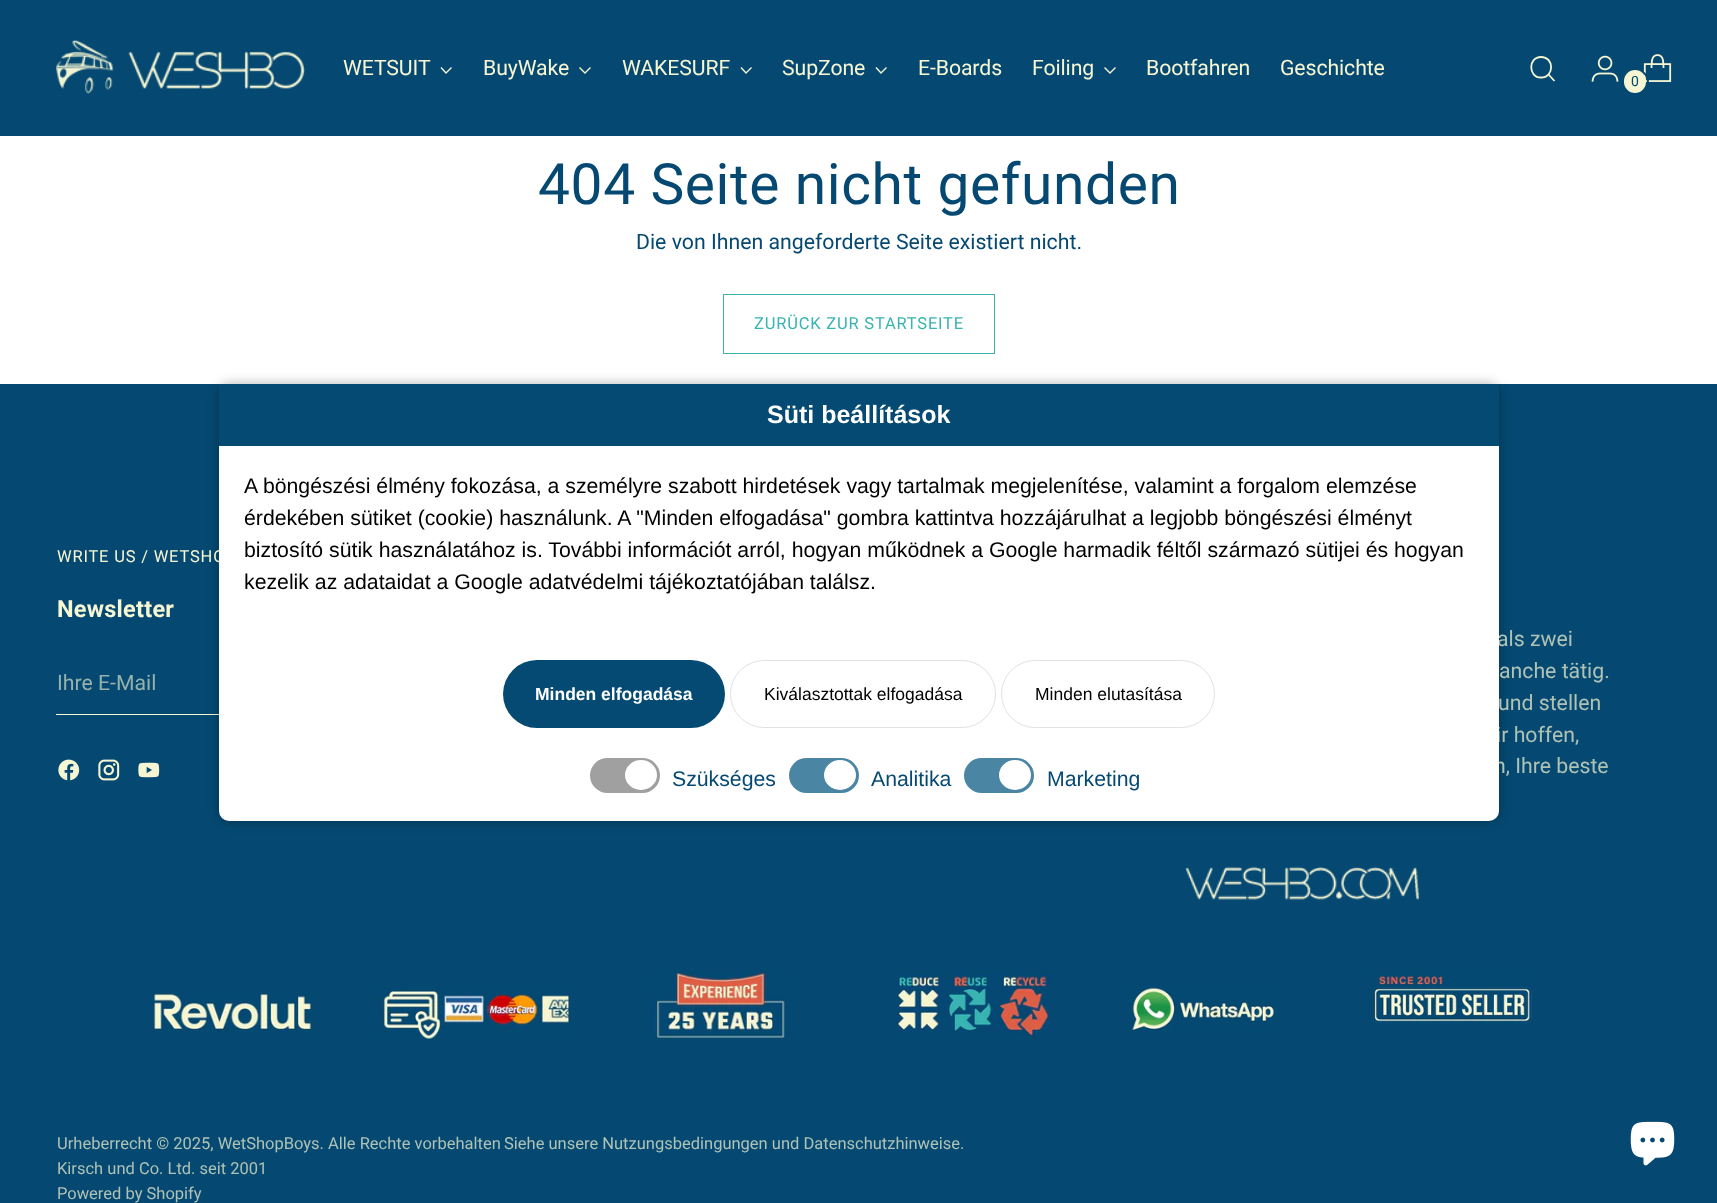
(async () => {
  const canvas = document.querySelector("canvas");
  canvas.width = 1717;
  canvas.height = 1203;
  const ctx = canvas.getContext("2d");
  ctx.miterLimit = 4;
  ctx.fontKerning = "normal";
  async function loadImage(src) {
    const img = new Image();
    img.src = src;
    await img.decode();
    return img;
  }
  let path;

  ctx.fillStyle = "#ffffff";
  ctx.fillRect(0, 0, 1717, 1203);
  ctx.fillStyle = "#054972";
  ctx.fillRect(0, 0, 1717, 136);
  ctx.drawImage(await loadImage("img/1.png"), 56, 39, 249, 55);
  path = new Path2D("M441 67.5L446 73L451.5 67.5");
  ctx.strokeStyle = "#f6f6d2";
  ctx.lineWidth = 1.4;
  ctx.stroke(path);
  path = new Path2D("M579.5 67.5L585 73L590.5 67.5");
  ctx.stroke(path);
  path = new Path2D("M741 67.5L746 73L751.5 67.5");
  ctx.stroke(path);
  path = new Path2D("M876 67.5L881 73L886.5 67.5");
  ctx.stroke(path);
  path = new Path2D("M1104.5 67.5L1110 73L1115.5 67.5");
  ctx.stroke(path);
  path = new Path2D("M1541 77.5C1554.5 77.5 1554.5 57 1541 57C1528 57 1528 77.5 1541 77.5Z");
  ctx.lineWidth = 1.8;
  ctx.lineCap = "round";
  ctx.stroke(path);
  path = new Path2D("M1548.5 74.5L1554.5 81");
  ctx.lineCap = "butt";
  ctx.stroke(path);
  ctx.drawImage(await loadImage("img/2.png"), 1591, 55, 28, 27);
  ctx.drawImage(await loadImage("img/3.png"), 1643, 54, 29, 28);
  ctx.beginPath();
  ctx.arc(1636, 82, 12, 0, Math.PI * 2);
  ctx.strokeStyle = "#054972";
  ctx.lineWidth = 2;
  ctx.stroke();
  ctx.fillStyle = "#f6f6d2";
  ctx.beginPath();
  ctx.roundRect(1624, 70, 22, 23, 11);
  ctx.fill();
  ctx.strokeStyle = "#39b4b1";
  ctx.lineWidth = 1;
  ctx.strokeRect(723.5, 294.5, 271, 59);
  ctx.fillStyle = "#054972";
  ctx.fillRect(0, 384, 1717, 819);
  ctx.fillStyle = "#f6f6d2";
  ctx.fillRect(56, 714, 163, 1);
  ctx.fillStyle = "rgba(0, 0, 0, 0.3)";
  ctx.filter = "blur(6px)";
  ctx.beginPath();
  ctx.roundRect(219, 384, 1280, 437, 10);
  ctx.fill();
  ctx.filter = "none";
  ctx.drawImage(await loadImage("img/4.png"), 58, 759, 22, 22);
  ctx.drawImage(await loadImage("img/5.png"), 98, 759, 22, 22);
  ctx.drawImage(await loadImage("img/6.png"), 138, 762, 22, 16);
  ctx.drawImage(await loadImage("img/7.png"), 1185, 866, 235, 34);
  ctx.drawImage(await loadImage("img/8.png"), 151, 992, 162, 41);
  ctx.drawImage(await loadImage("img/9.png"), 378, 986, 192, 54);
  ctx.drawImage(await loadImage("img/10.png"), 651, 971, 137, 68);
  ctx.drawImage(await loadImage("img/11.png"), 895, 971, 157, 68);
  ctx.drawImage(await loadImage("img/12.png"), 1129, 984, 149, 49);
  ctx.drawImage(await loadImage("img/13.png"), 1372, 971, 160, 53);
  ctx.drawImage(await loadImage("img/14.png"), 1630, 1121, 45, 45);
  ctx.letterSpacing = "-0.1px";
  ctx.font = "21.25px Roboto";
  ctx.fillStyle = "#f6f6d2";
  for (const [text, x, y] of [
    ["WETSUIT", 343, 75],
    ["BuyWake", 483, 75],
    ["WAKESURF", 622, 75],
    ["SupZone", 782, 75],
    ["E-Boards", 918, 75],
    ["Foiling", 1032, 75],
    ["Bootfahren", 1146, 75],
    ["Geschichte", 1280, 75],
  ]) {
    ctx.fillText(text, x, y);
  }
  ctx.letterSpacing = "0px";
  ctx.font = "14px Roboto";
  ctx.fillStyle = "#054972";
  ctx.fillText("0", 1631, 86);
  ctx.letterSpacing = "0.6px";
  ctx.font = "56.9px Roboto";
  ctx.fillText("404 Seite nicht gefunden", 538, 204);
  ctx.letterSpacing = "0px";
  ctx.font = "21.25px Roboto";
  ctx.fillText("Die von Ihnen angeforderte Seite existiert nicht.", 636, 249);
  ctx.letterSpacing = "0.8px";
  ctx.font = "16.5px Roboto";
  ctx.fillStyle = "#39b4b1";
  ctx.fillText("ZURÜCK ZUR STARTSEITE", 754, 329);
  ctx.fillStyle = "#f6f6d2";
  ctx.fillText("WRITE US / WETSHO", 57, 562);
  ctx.letterSpacing = "0.25px";
  ctx.font = "bold 23.5px Roboto";
  ctx.fillText("Newsletter", 57, 617);
  ctx.letterSpacing = "0px";
  ctx.font = "21.25px Roboto";
  ctx.fillStyle = "#96b1ac";
  ctx.fillText("Ihre E-Mail", 57, 690);
  ctx.fillStyle = "#aec2b5";
  for (const [text, x, y] of [
    ["als zwei", 1497, 646],
    ["anche tätig.", 1499, 678],
    ["und stellen", 1498, 710],
    ["ir hoffen,", 1496, 742],
    ["n, Ihre beste", 1494, 773],
  ]) {
    ctx.fillText(text, x, y);
  }
  ctx.fillStyle = "#ffffff";
  ctx.beginPath();
  ctx.roundRect(219, 384, 1280, 437, 10);
  ctx.fill();
  ctx.fillStyle = "#4a85a3";
  ctx.beginPath();
  ctx.roundRect(964, 758, 70, 35, 17.5);
  ctx.fill();
  ctx.fillStyle = "#ffffff";
  ctx.beginPath();
  ctx.ellipse(1015, 775, 16, 15, 0, 0, Math.PI * 2);
  ctx.fill();
  ctx.fillStyle = "#4a85a3";
  ctx.beginPath();
  ctx.roundRect(789, 758, 70, 35, 17.5);
  ctx.fill();
  ctx.fillStyle = "#ffffff";
  ctx.beginPath();
  ctx.ellipse(840, 775, 16, 15, 0, 0, Math.PI * 2);
  ctx.fill();
  ctx.fillStyle = "#a0a0a0";
  ctx.beginPath();
  ctx.roundRect(590, 758, 70, 35, 17.5);
  ctx.fill();
  ctx.fillStyle = "#ffffff";
  ctx.beginPath();
  ctx.ellipse(641, 775, 16, 15, 0, 0, Math.PI * 2);
  ctx.fill();
  ctx.font = "21.25px Liberation Sans";
  ctx.fillStyle = "#054972";
  for (const [text, x, y] of [
    ["Marketing", 1047, 786],
    ["Analitika", 871, 786],
    ["Szükséges", 672, 786],
  ]) {
    ctx.fillText(text, x, y);
  }
  ctx.beginPath();
  ctx.roundRect(1001.5, 660.5, 213, 67, 33.5);
  ctx.strokeStyle = "#dfe1e5";
  ctx.stroke();
  ctx.font = "17.5px Liberation Sans";
  ctx.fillStyle = "#000000";
  ctx.fillText("Minden elutasítása", 1035, 700);
  ctx.beginPath();
  ctx.roundRect(730.5, 660.5, 265, 67, 33.5);
  ctx.stroke();
  ctx.fillText("Kiválasztottak elfogadása", 764, 700);
  ctx.fillStyle = "#044a73";
  ctx.beginPath();
  ctx.roundRect(503, 660, 222, 68, 34);
  ctx.fill();
  ctx.font = "bold 17.5px Liberation Sans";
  ctx.fillStyle = "#ffffff";
  ctx.fillText("Minden elfogadása", 535, 700);
  ctx.font = "21.25px Liberation Sans";
  ctx.fillStyle = "#000000";
  for (const [text, x, y] of [
    ["kezelik az adataidat a Google adatvédelmi tájékoztatójában találsz.", 244, 589],
    ["biztosító sütik használatához is. További információt arról, hogyan működnek a Google harmadik féltől származó sütijei és hogyan", 244, 557],
    ["érdekében sütiket (cookie) használunk. A \"Minden elfogadása\" gombra kattintva hozzájárulhat a legjobb böngészési élményt", 244, 525],
    ["A böngészési élmény fokozása, a személyre szabott hirdetések vagy tartalmak megjelenítése, valamint a forgalom elemzése", 244, 493],
  ]) {
    ctx.fillText(text, x, y);
  }
  ctx.fillStyle = "#044a73";
  ctx.fillRect(219, 384, 1280, 62);
  ctx.font = "bold 25px Liberation Sans";
  ctx.fillStyle = "#ffffff";
  ctx.fillText("Süti beállítások", 767, 423);
  ctx.font = "16.5px Roboto";
  ctx.fillStyle = "#aec2b5";
  for (const [text, x, y] of [
    ["Urheberrecht © 2025, WetShopBoys. Alle Rechte vorbehalten", 57, 1149],
    ["Siehe unsere Nutzungsbedingungen und Datenschutzhinweise.", 504, 1149],
    ["Kirsch und Co. Ltd. seit 2001", 57, 1174],
    ["Powered by Shopify", 57, 1199],
  ]) {
    ctx.fillText(text, x, y);
  }
})();
